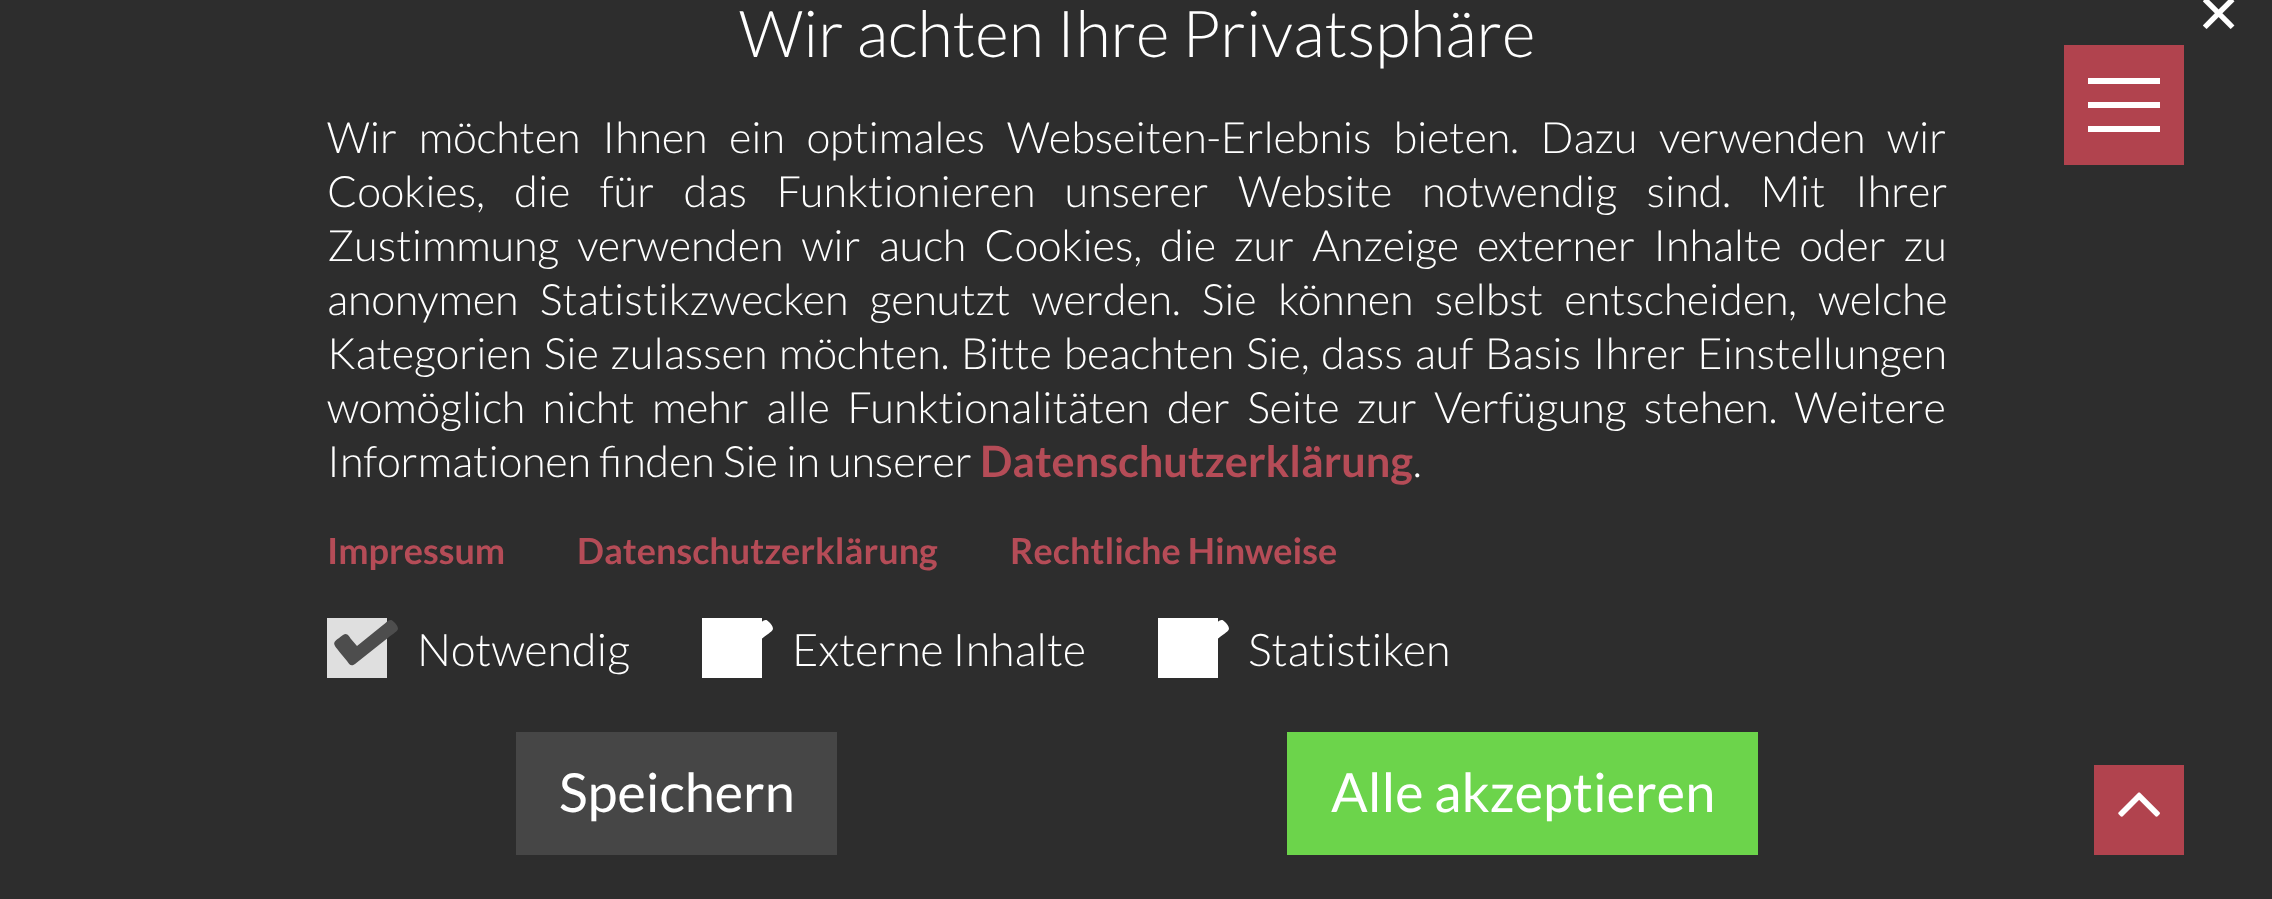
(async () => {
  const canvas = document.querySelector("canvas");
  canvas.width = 2272;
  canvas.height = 899;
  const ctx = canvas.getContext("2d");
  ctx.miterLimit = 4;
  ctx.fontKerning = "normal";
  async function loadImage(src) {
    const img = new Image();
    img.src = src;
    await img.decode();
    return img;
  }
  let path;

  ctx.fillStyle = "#2d2d2d";
  ctx.fillRect(0, 0, 2272, 899);
  ctx.fillStyle = "#dfdfdf";
  ctx.fillRect(327, 618, 60, 60);
  ctx.fillStyle = "#4d4d4d";
  path = new Path2D("M398 629C397 632 390 636 389 637L355 664C351 667 349 664 347 661L342 655C332 642 331 644 343 635C347 632 349 636 351 639L357 646L383 625C387 622 390 617 394 622C396 624 398 626 398 629Z");
  ctx.fill(path);
  ctx.fillStyle = "#ffffff";
  ctx.fillRect(702, 618, 60, 60);
  path = new Path2D("M773 629C772 632 765 636 764 637L730 664C726 667 724 664 722 661L717 655C707 642 706 644 718 635C722 632 724 636 726 639L732 646L758 625C762 622 765 617 769 622C771 624 773 626 773 629Z");
  ctx.fill(path);
  ctx.fillRect(1158, 618, 60, 60);
  path = new Path2D("M1229 629C1228 632 1221 636 1220 637L1186 664C1182 667 1180 664 1178 661L1173 655C1163 642 1162 644 1174 635C1178 632 1180 636 1182 639L1188 646L1214 625C1218 622 1221 617 1225 622C1227 624 1229 626 1229 629Z");
  ctx.fill(path);
  for (const [x, y, w, h, color] of [
    [516, 732, 321, 123, "#464646"],
    [1287, 732, 471, 123, "#6cd44b"],
    [2064, 45, 120, 120, "#b1434e"],
    [2088, 102, 72, 6, "#ffffff"],
    [2088, 78, 72, 6, "#ffffff"],
    [2088, 126, 72, 6, "#ffffff"],
    [2094, 765, 90, 90, "#b1434e"],
  ]) {
    ctx.fillStyle = color;
    ctx.fillRect(x, y, w, h);
  }
  ctx.drawImage(await loadImage("img/1.png"), 2118, 792, 42, 25);
  ctx.font = "300 64.75px Lato";
  ctx.fillStyle = "#ffffff";
  ctx.fillText("Wir achten Ihre Privatsphäre", 739, 57);
  ctx.font = "54px DejaVu Sans";
  ctx.fillText("✕", 2196, 33);
  ctx.wordSpacing = "13.5px";
  ctx.font = "300 43.2px Lato";
  ctx.fillText("Wir möchten Ihnen ein optimales Webseiten-Erlebnis bieten. Dazu verwenden wir", 327, 153);
  ctx.wordSpacing = "21.25px";
  ctx.fillText("Cookies, die für das Funktionieren unserer Website notwendig sind. Mit Ihrer", 327, 207);
  ctx.wordSpacing = "9.75px";
  ctx.fillText("Zustimmung verwenden wir auch Cookies, die zur Anzeige externer Inhalte oder zu", 327, 261);
  ctx.wordSpacing = "13px";
  ctx.fillText("anonymen Statistikzwecken genutzt werden. Sie können selbst entscheiden, welche", 327, 315);
  ctx.wordSpacing = "3.5px";
  ctx.fillText("Kategorien Sie zulassen möchten. Bitte beachten Sie, dass auf Basis Ihrer Einstellungen", 327, 369);
  ctx.wordSpacing = "9px";
  ctx.fillText("womöglich nicht mehr alle Funktionalitäten der Seite zur Verfügung stehen. Weitere", 327, 423);
  ctx.wordSpacing = "0px";
  ctx.fillText("Informationen finden Sie in unserer", 327, 477);
  ctx.font = "bold 43.2px Lato";
  ctx.fillStyle = "#b54c57";
  ctx.fillText("Datenschutzerklärung", 980, 477);
  ctx.font = "300 43.2px Lato";
  ctx.fillStyle = "#ffffff";
  ctx.fillText(".", 1413, 477);
  ctx.font = "bold 36px Lato";
  ctx.fillStyle = "#b54c57";
  for (const [text, x, y] of [
    ["Impressum", 327, 564],
    ["Datenschutzerklärung", 577, 564],
    ["Rechtliche Hinweise", 1010, 564],
  ]) {
    ctx.fillText(text, x, y);
  }
  ctx.font = "300 45px Lato";
  ctx.fillStyle = "#ffffff";
  for (const [text, x, y] of [
    ["Notwendig", 417, 666],
    ["Externe Inhalte", 792, 666],
    ["Statistiken", 1248, 666],
  ]) {
    ctx.fillText(text, x, y);
  }
  ctx.font = "54px Lato";
  ctx.fillText("Speichern", 559, 812);
  ctx.fillText("Alle akzeptieren", 1331, 812);
})();
